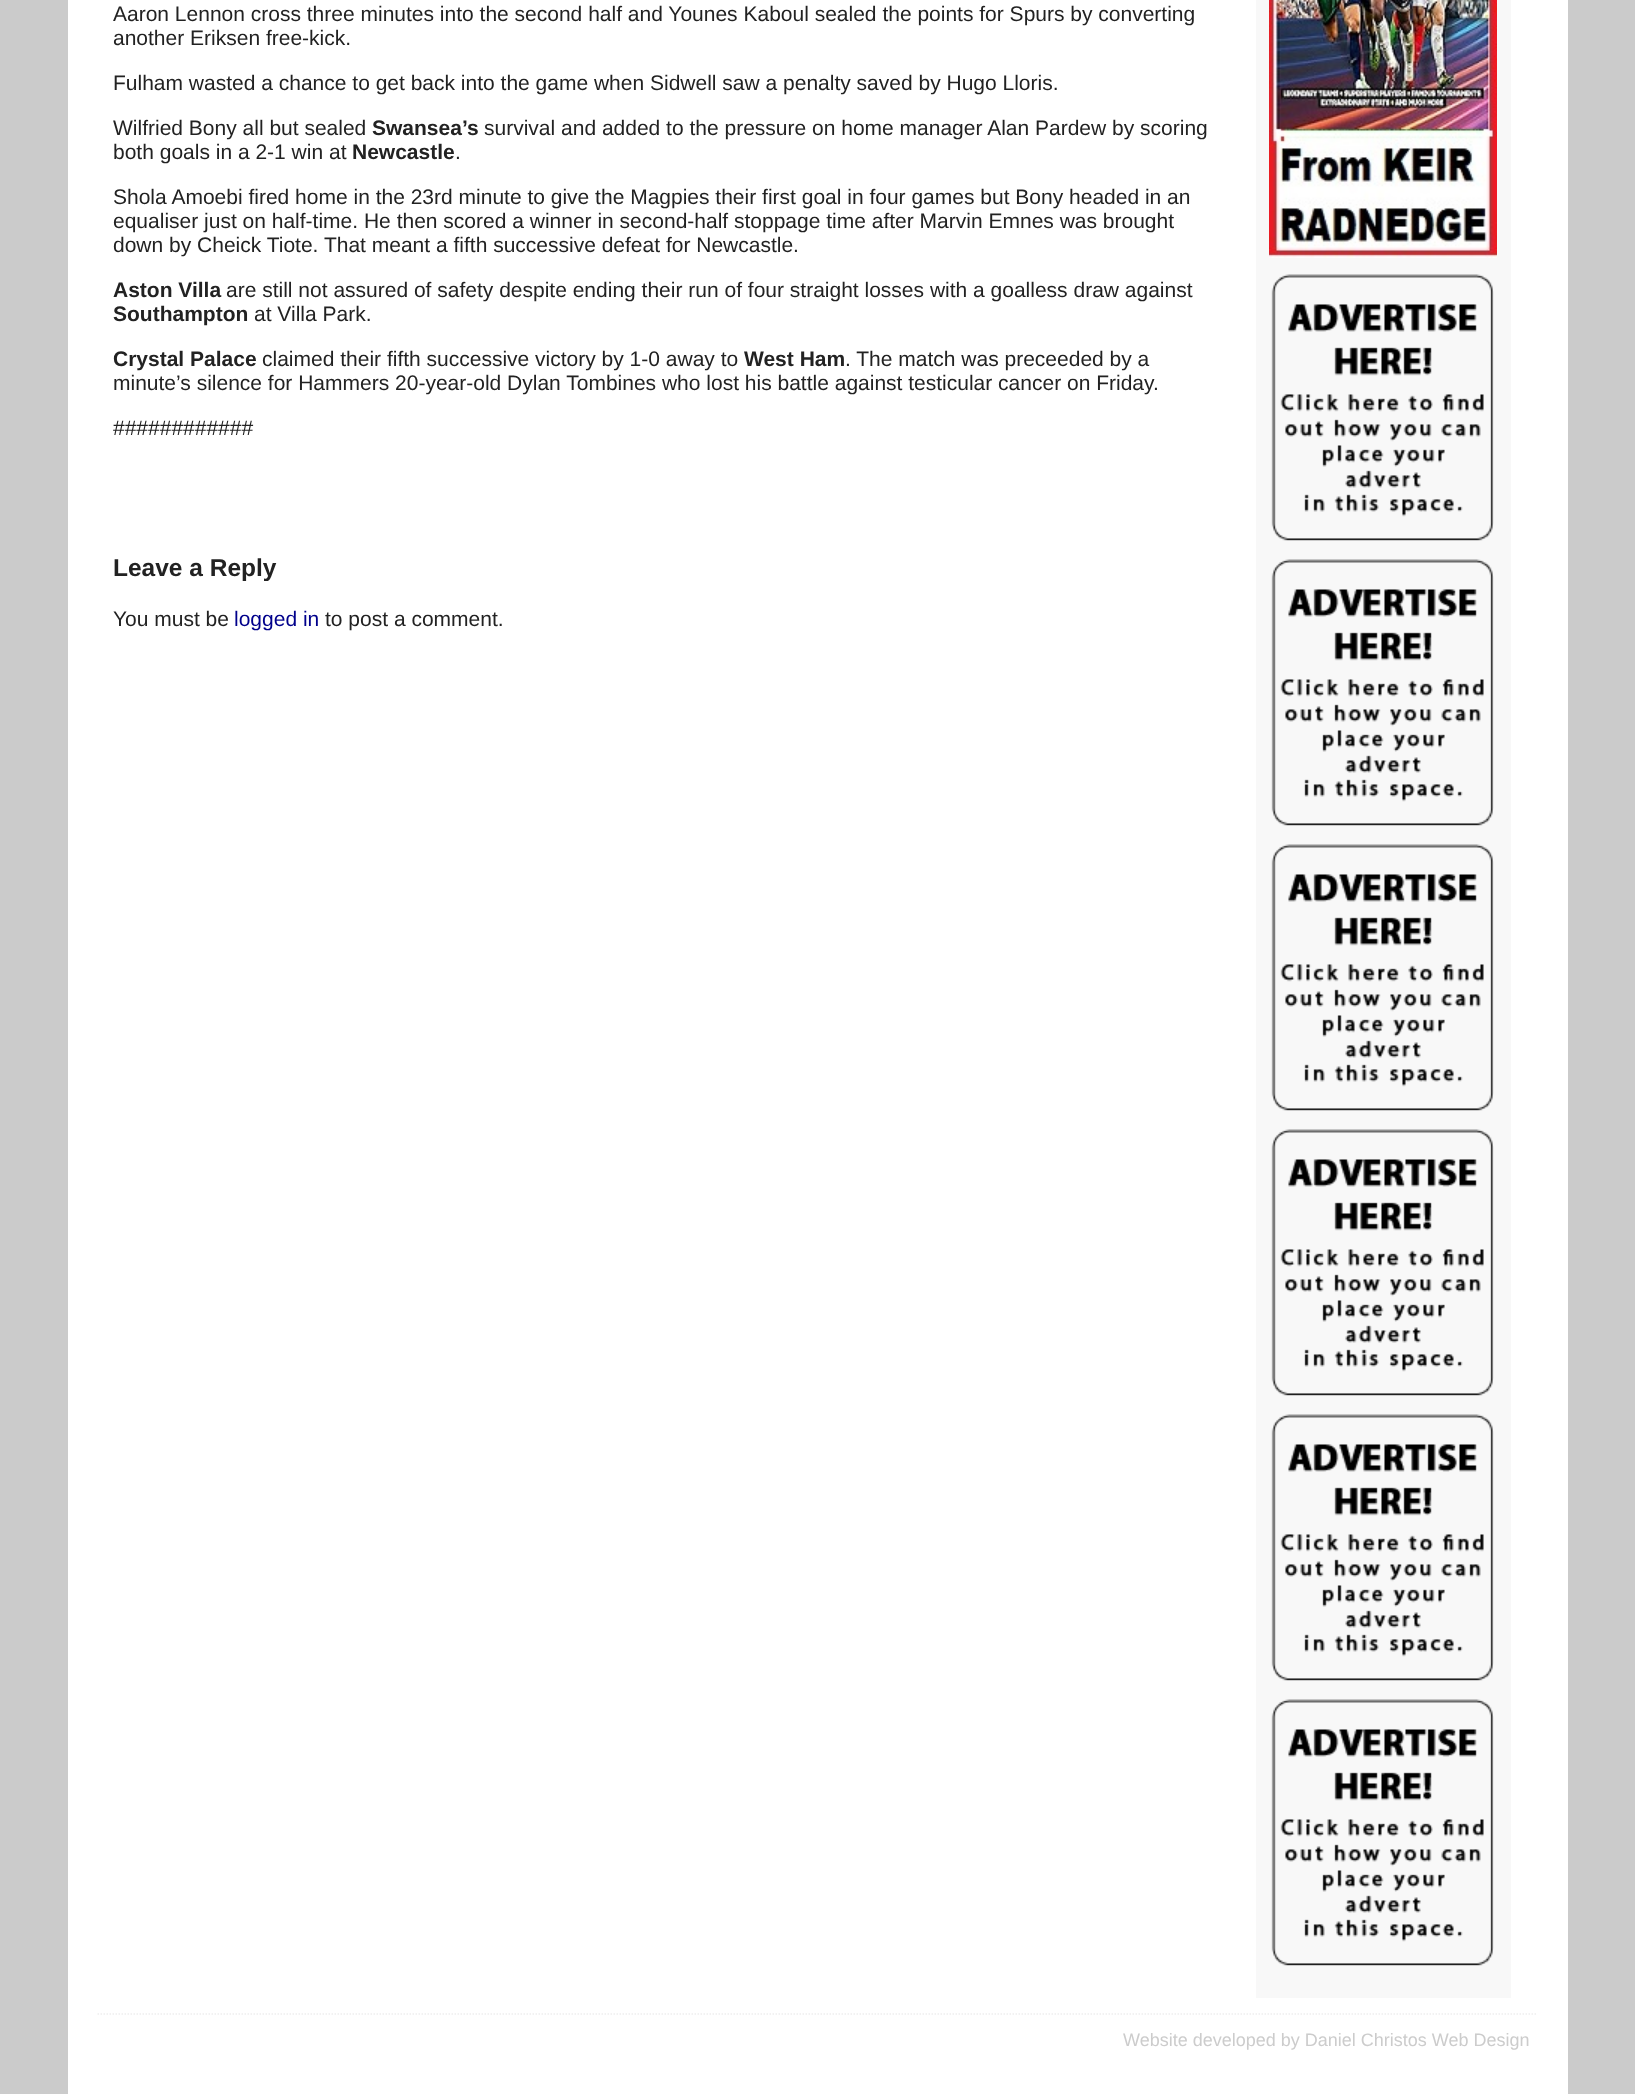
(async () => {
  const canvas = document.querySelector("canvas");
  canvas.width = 1635;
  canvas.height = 2094;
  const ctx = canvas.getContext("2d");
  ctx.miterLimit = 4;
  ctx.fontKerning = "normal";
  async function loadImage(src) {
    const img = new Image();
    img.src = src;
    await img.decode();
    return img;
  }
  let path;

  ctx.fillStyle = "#cbcbcb";
  ctx.fillRect(0, 0, 1635, 2094);
  ctx.fillStyle = "#ffffff";
  ctx.fillRect(68, 0, 1500, 2094);
  ctx.fillStyle = "#f8f8f8";
  ctx.fillRect(1256, 0, 255, 1998);
  ctx.drawImage(await loadImage("img/1.png"), 1269, 0, 228, 258);
  ctx.drawImage(await loadImage("img/2.png"), 1271, 274, 223, 267);
  ctx.drawImage(await loadImage("img/2.png"), 1271, 559, 223, 267);
  ctx.drawImage(await loadImage("img/2.png"), 1271, 844, 223, 267);
  ctx.drawImage(await loadImage("img/2.png"), 1271, 1129, 223, 267);
  ctx.drawImage(await loadImage("img/2.png"), 1271, 1414, 223, 267);
  ctx.drawImage(await loadImage("img/2.png"), 1271, 1699, 223, 267);
  path = new Path2D("M97.5 2014H1537.5");
  ctx.strokeStyle = "#eeeeee";
  ctx.lineWidth = 1.5;
  ctx.setLineDash([1.5, 1.5]);
  ctx.stroke(path);
  ctx.font = "21px Liberation Sans";
  ctx.fillStyle = "#222222";
  for (const [text, x, y] of [
    ["Aaron Lennon cross three minutes into the second half and Younes Kaboul sealed the points for Spurs by converting", 113, 21],
    ["another Eriksen free-kick.", 113, 45],
    ["Fulham wasted a chance to get back into the game when Sidwell saw a penalty saved by Hugo Lloris.", 113, 90],
    ["Wilfried Bony all but sealed", 113, 135],
  ]) {
    ctx.fillText(text, x, y);
  }
  ctx.font = "bold 21px Liberation Sans";
  ctx.fillText("Swansea’s", 372, 135);
  ctx.font = "21px Liberation Sans";
  ctx.fillText("survival and added to the pressure on home manager Alan Pardew by scoring", 484, 135);
  ctx.fillText("both goals in a 2-1 win at", 113, 159);
  ctx.font = "bold 21px Liberation Sans";
  ctx.fillText("Newcastle", 352, 159);
  ctx.font = "21px Liberation Sans";
  for (const [text, x, y] of [
    [".", 455, 159],
    ["Shola Amoebi fired home in the 23rd minute to give the Magpies their first goal in four games but Bony headed in an", 113, 204],
    ["equaliser just on half-time. He then scored a winner in second-half stoppage time after Marvin Emnes was brought", 113, 228],
    ["down by Cheick Tiote. That meant a fifth successive defeat for Newcastle.", 113, 252],
  ]) {
    ctx.fillText(text, x, y);
  }
  ctx.font = "bold 21px Liberation Sans";
  ctx.fillText("Aston Villa", 113, 297);
  ctx.font = "21px Liberation Sans";
  ctx.fillText("are still not assured of safety despite ending their run of four straight losses with a goalless draw against", 226, 297);
  ctx.font = "bold 21px Liberation Sans";
  ctx.fillText("Southampton", 113, 321);
  ctx.font = "21px Liberation Sans";
  ctx.fillText("at Villa Park.", 254, 321);
  ctx.font = "bold 21px Liberation Sans";
  ctx.fillText("Crystal Palace", 113, 366);
  ctx.font = "21px Liberation Sans";
  ctx.fillText("claimed their fifth successive victory by 1-0 away to", 262, 366);
  ctx.font = "bold 21px Liberation Sans";
  ctx.fillText("West Ham", 744, 366);
  ctx.font = "21px Liberation Sans";
  for (const [text, x, y] of [
    [". The match was preceeded by a", 845, 366],
    ["minute’s silence for Hammers 20-year-old Dylan Tombines who lost his battle against testicular cancer on Friday.", 113, 390],
    ["############", 113, 435],
  ]) {
    ctx.fillText(text, x, y);
  }
  ctx.font = "bold 24.5px Liberation Sans";
  ctx.fillText("Leave a Reply", 113, 576);
  ctx.font = "21px Liberation Sans";
  ctx.fillText("You must be", 113, 626);
  ctx.fillStyle = "#00008b";
  ctx.fillText("logged in", 234, 626);
  ctx.fillStyle = "#222222";
  ctx.fillText("to post a comment.", 325, 626);
  ctx.font = "18px Liberation Sans";
  ctx.fillStyle = "#cccccc";
  ctx.fillText("Website developed by Daniel Christos Web Design", 1123, 2046);
})();
